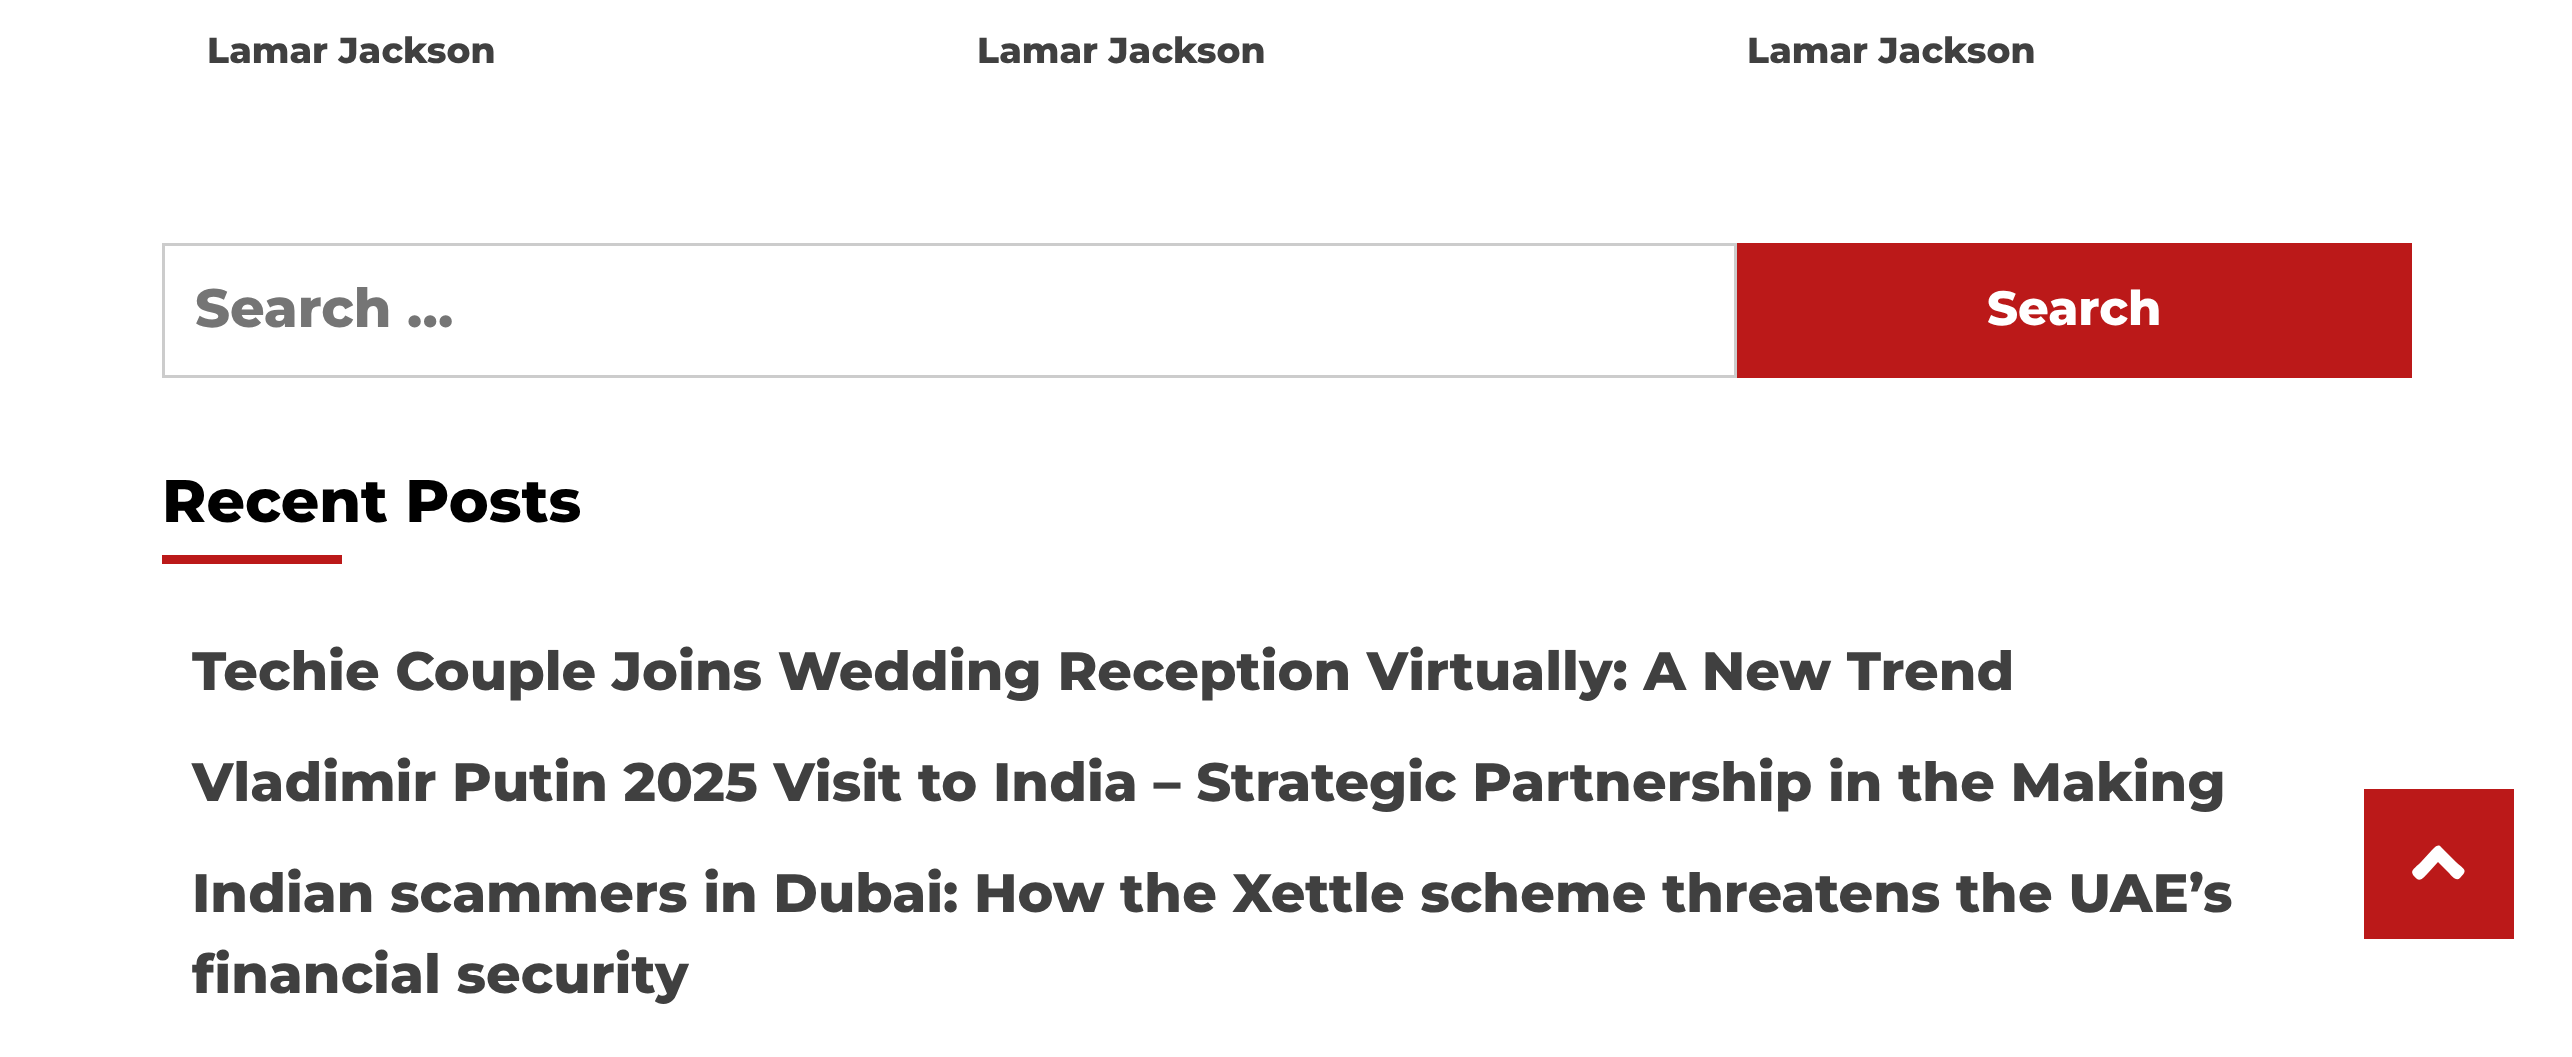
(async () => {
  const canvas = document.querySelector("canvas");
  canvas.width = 2572;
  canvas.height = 1057;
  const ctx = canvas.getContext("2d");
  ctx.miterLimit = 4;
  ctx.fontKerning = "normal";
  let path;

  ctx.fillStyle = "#ffffff";
  ctx.fillRect(0, 0, 2572, 1057);
  ctx.strokeStyle = "#cccccc";
  ctx.lineWidth = 3;
  ctx.strokeRect(163.5, 244.5, 1572, 132);
  for (const [x, y, w, h, color] of [
    [1737, 243, 675, 135, "#bb1919"],
    [162, 555, 180, 9, "#bb1919"],
    [2364, 789, 150, 150, "#bb1919"],
  ]) {
    ctx.fillStyle = color;
    ctx.fillRect(x, y, w, h);
  }
  ctx.fillStyle = "#ffffff";
  path = new Path2D("M2441 847L2456 862C2465 870 2468 870 2460 878C2456 882 2451 875 2449 873L2438 862L2428 873C2426 875 2421 882 2417 879C2408 871 2413 870 2421 862L2432 850C2434 848 2438 843 2441 847Z");
  ctx.fill(path);
  ctx.font = "100 36px Montserrat";
  ctx.fillStyle = "#404040";
  for (const [text, x, y] of [
    ["Lamar Jackson", 207, 63],
    ["Lamar Jackson", 977, 63],
    ["Lamar Jackson", 1747, 63],
  ]) {
    ctx.fillText(text, x, y);
  }
  ctx.font = "100 54px Montserrat";
  ctx.fillStyle = "#757575";
  ctx.fillText("Search …", 195, 327);
  ctx.font = "100 48px Montserrat";
  ctx.fillStyle = "#ffffff";
  ctx.fillText("Search", 1987, 325);
  ctx.font = "100 60px Montserrat";
  ctx.fillStyle = "#000000";
  ctx.fillText("Recent Posts", 162, 522);
  ctx.font = "100 54px Montserrat";
  ctx.fillStyle = "#404040";
  for (const [text, x, y] of [
    ["Techie Couple Joins Wedding Reception Virtually: A New Trend", 192, 690],
    ["Vladimir Putin 2025 Visit to India – Strategic Partnership in the Making", 192, 801],
    ["Indian scammers in Dubai: How the Xettle scheme threatens the UAE’s", 192, 912],
    ["financial security", 192, 993],
  ]) {
    ctx.fillText(text, x, y);
  }
})();
